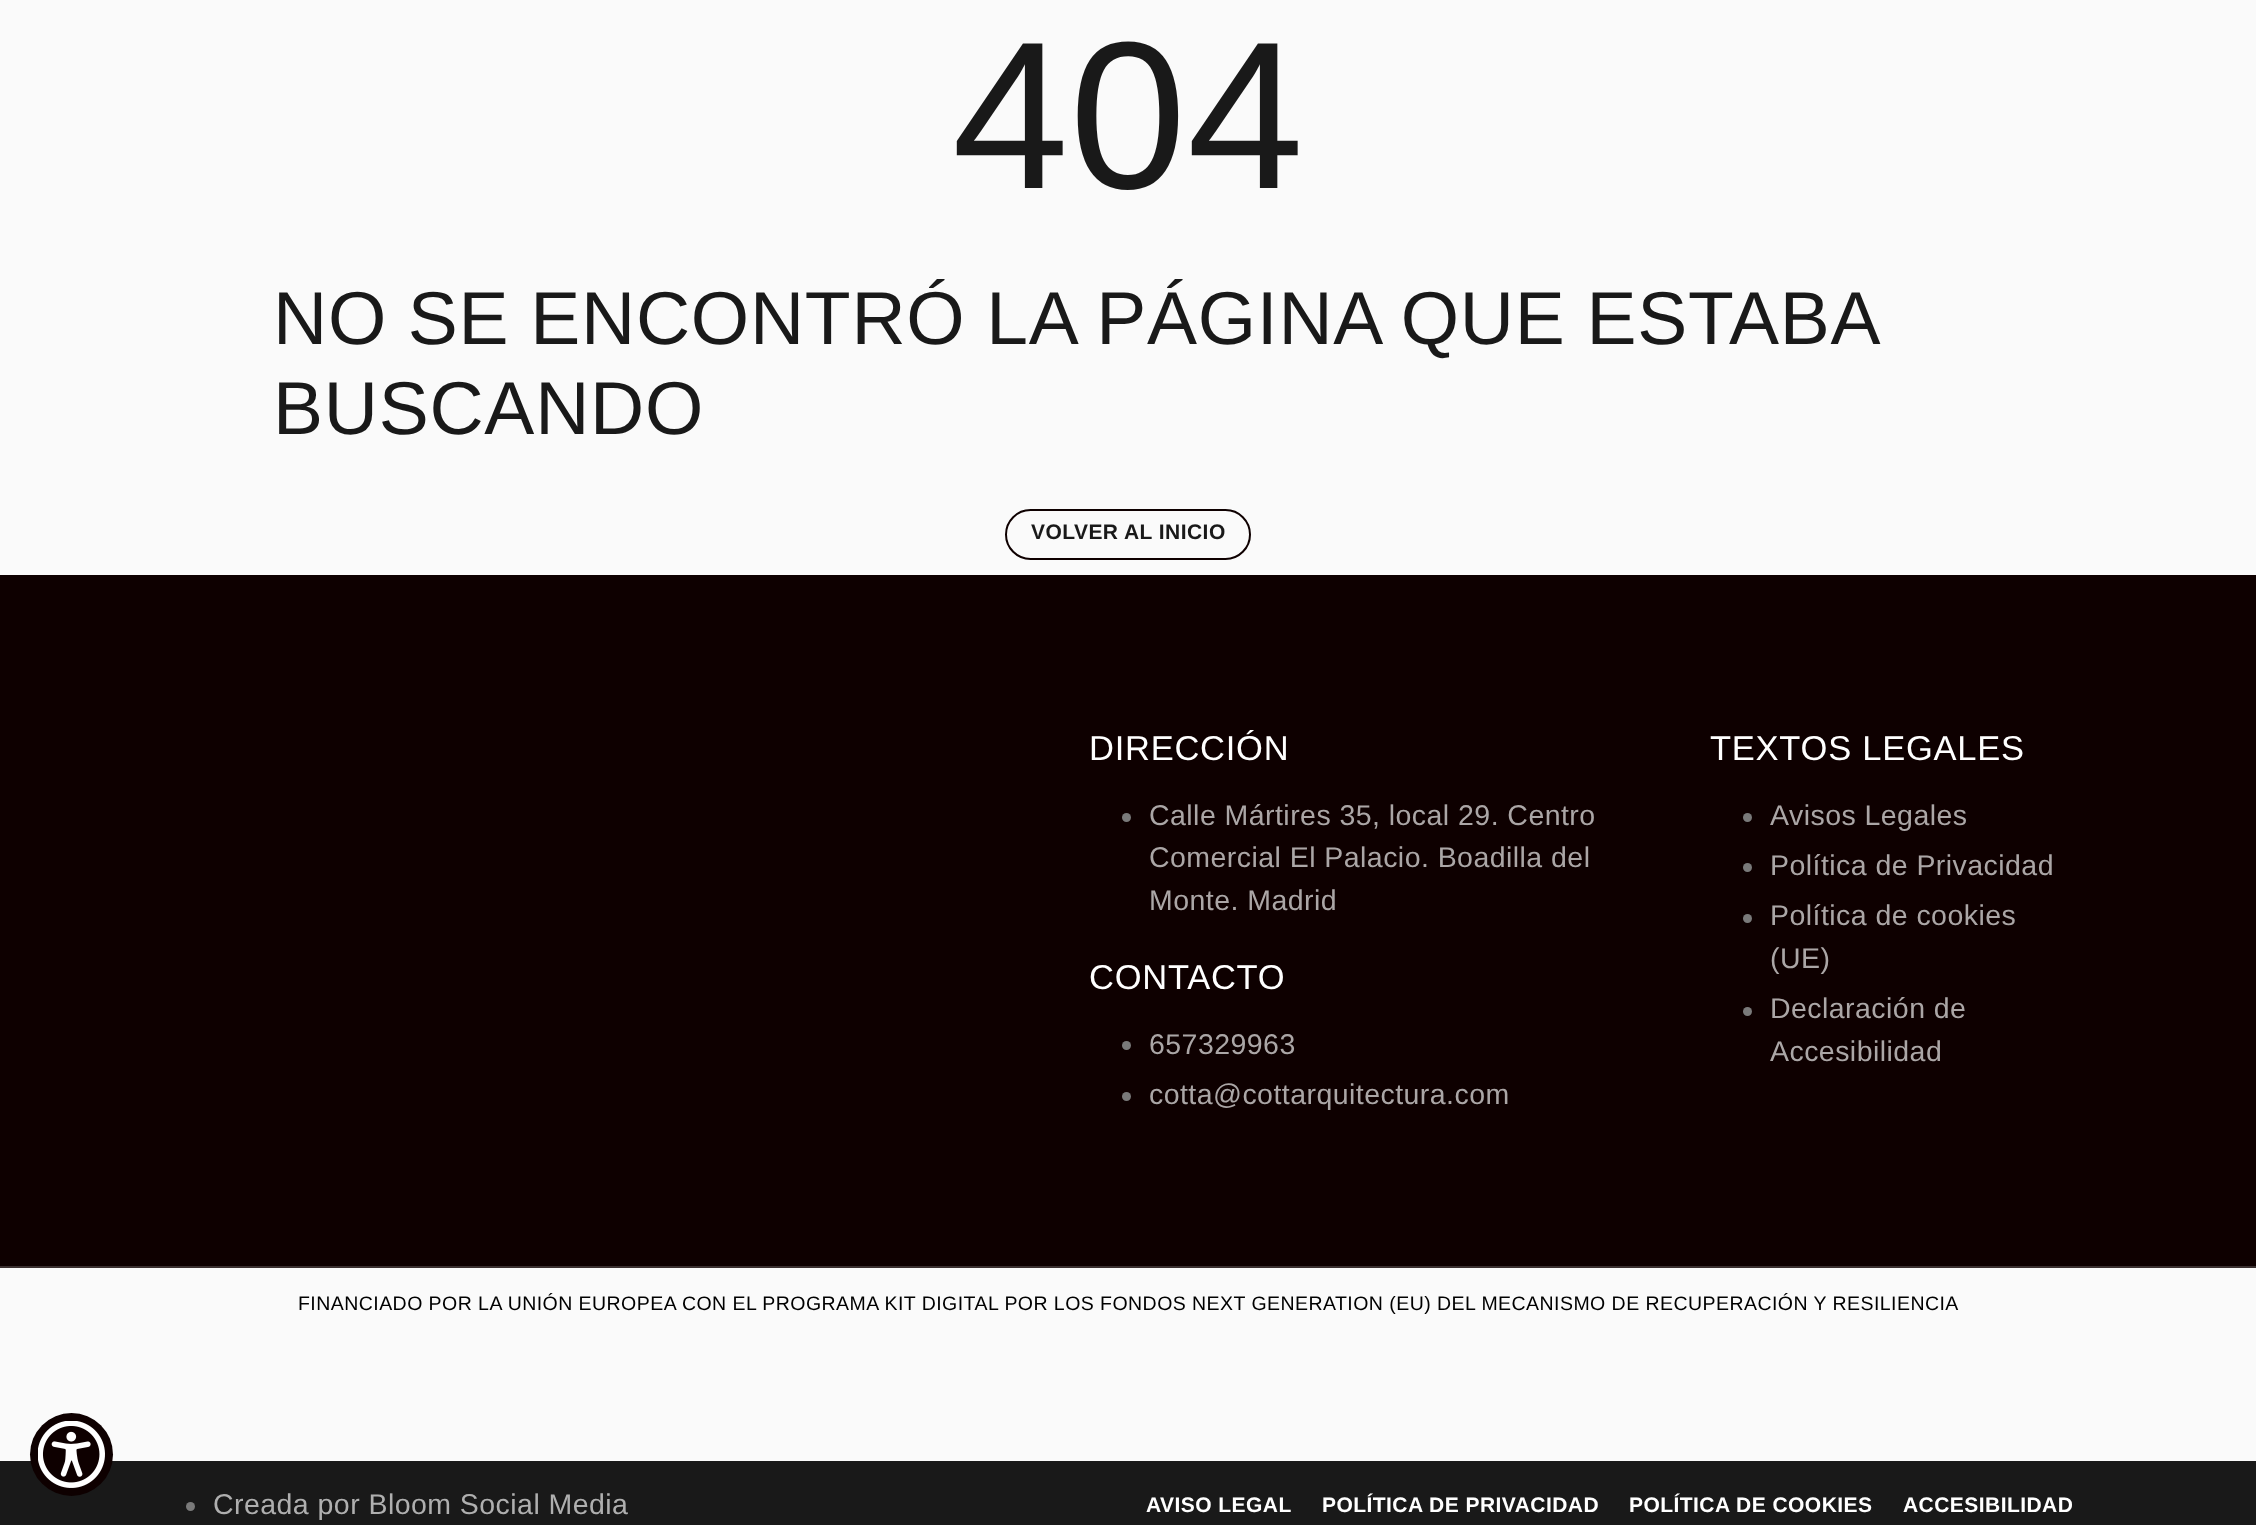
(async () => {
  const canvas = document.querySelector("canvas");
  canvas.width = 2256;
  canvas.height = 1525;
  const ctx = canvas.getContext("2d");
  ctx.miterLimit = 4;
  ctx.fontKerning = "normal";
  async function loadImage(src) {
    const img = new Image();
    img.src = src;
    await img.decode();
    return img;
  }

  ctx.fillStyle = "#fafafa";
  ctx.fillRect(0, 0, 2256, 1525);
  ctx.beginPath();
  ctx.roundRect(1006, 510, 244, 49, 24.5);
  ctx.strokeStyle = "#0e0000";
  ctx.lineWidth = 2;
  ctx.stroke();
  ctx.fillStyle = "#191919";
  ctx.fillRect(0, 1461, 2256, 64);
  ctx.fillStyle = "#0e0000";
  ctx.beginPath();
  ctx.arc(71.5, 1454.5, 41.5, 0, Math.PI * 2);
  ctx.fill();
  ctx.drawImage(await loadImage("img/1.png"), 38, 1421, 67, 67);
  ctx.fillRect(0, 575, 2256, 691);
  ctx.fillStyle = "#3b3030";
  ctx.fillRect(0, 1266, 2256, 2);
  ctx.fillStyle = "#7a7a7a";
  ctx.beginPath();
  ctx.arc(1126.5, 817.5, 4.5, 0, Math.PI * 2);
  ctx.fill();
  ctx.beginPath();
  ctx.arc(1126.5, 1045.5, 4.5, 0, Math.PI * 2);
  ctx.fill();
  ctx.beginPath();
  ctx.arc(1126.5, 1096.5, 4.5, 0, Math.PI * 2);
  ctx.fill();
  ctx.beginPath();
  ctx.arc(1747.5, 817.5, 4.5, 0, Math.PI * 2);
  ctx.fill();
  ctx.beginPath();
  ctx.arc(1747.5, 867.5, 4.5, 0, Math.PI * 2);
  ctx.fill();
  ctx.beginPath();
  ctx.arc(1747.5, 918.5, 4.5, 0, Math.PI * 2);
  ctx.fill();
  ctx.beginPath();
  ctx.arc(1747.5, 1011.5, 4.5, 0, Math.PI * 2);
  ctx.fill();
  ctx.beginPath();
  ctx.arc(190.5, 1506.5, 4.5, 0, Math.PI * 2);
  ctx.fill();
  ctx.letterSpacing = "0.75px";
  ctx.font = "210px Liberation Sans";
  ctx.fillStyle = "#191919";
  ctx.fillText("404", 952, 188);
  ctx.wordSpacing = "-0.75px";
  ctx.font = "75px Liberation Sans";
  ctx.fillText("NO SE ENCONTRÓ LA PÁGINA QUE ESTABA", 273, 344);
  ctx.wordSpacing = "0px";
  ctx.fillText("BUSCANDO", 273, 434);
  ctx.letterSpacing = "0.45px";
  ctx.font = "bold 21px Liberation Sans";
  ctx.fillText("VOLVER AL INICIO", 1031, 539);
  ctx.letterSpacing = "0.75px";
  ctx.font = "34.5px Liberation Sans";
  ctx.fillStyle = "#ffffff";
  ctx.fillText("DIRECCIÓN", 1089, 760);
  ctx.letterSpacing = "0.45px";
  ctx.font = "28.5px Liberation Sans";
  ctx.fillStyle = "#aba6a6";
  for (const [text, x, y] of [
    ["Calle Mártires 35, local 29. Centro", 1149, 825],
    ["Comercial El Palacio. Boadilla del", 1149, 867],
    ["Monte. Madrid", 1149, 910],
  ]) {
    ctx.fillText(text, x, y);
  }
  ctx.letterSpacing = "0.75px";
  ctx.font = "34.5px Liberation Sans";
  ctx.fillStyle = "#ffffff";
  ctx.fillText("CONTACTO", 1089, 989);
  ctx.letterSpacing = "0.45px";
  ctx.font = "28.5px Liberation Sans";
  ctx.fillStyle = "#aba6a6";
  ctx.fillText("657329963", 1149, 1054);
  ctx.fillText("cotta@cottarquitectura.com", 1149, 1104);
  ctx.letterSpacing = "0.75px";
  ctx.font = "34.5px Liberation Sans";
  ctx.fillStyle = "#ffffff";
  ctx.fillText("TEXTOS LEGALES", 1710, 760);
  ctx.letterSpacing = "0.45px";
  ctx.font = "28.5px Liberation Sans";
  ctx.fillStyle = "#aba6a6";
  for (const [text, x, y] of [
    ["Avisos Legales", 1770, 825],
    ["Política de Privacidad", 1770, 875],
    ["Política de cookies", 1770, 925],
    ["(UE)", 1770, 968],
    ["Declaración de", 1770, 1018],
    ["Accesibilidad", 1770, 1061],
  ]) {
    ctx.fillText(text, x, y);
  }
  ctx.font = "19.5px Liberation Sans";
  ctx.fillStyle = "#000000";
  ctx.fillText("FINANCIADO POR LA UNIÓN EUROPEA CON EL PROGRAMA KIT DIGITAL POR LOS FONDOS NEXT GENERATION (EU) DEL MECANISMO DE RECUPERACIÓN Y RESILIENCIA", 298, 1310);
  ctx.font = "28.5px Liberation Sans";
  ctx.fillStyle = "#afafaf";
  ctx.fillText("Creada por Bloom Social Media", 213, 1514);
  ctx.font = "bold 21px Liberation Sans";
  ctx.fillStyle = "#ffffff";
  for (const [text, x, y] of [
    ["AVISO LEGAL", 1146, 1512],
    ["POLÍTICA DE PRIVACIDAD", 1322, 1512],
    ["POLÍTICA DE COOKIES", 1629, 1512],
    ["ACCESIBILIDAD", 1903, 1512],
  ]) {
    ctx.fillText(text, x, y);
  }
})();
